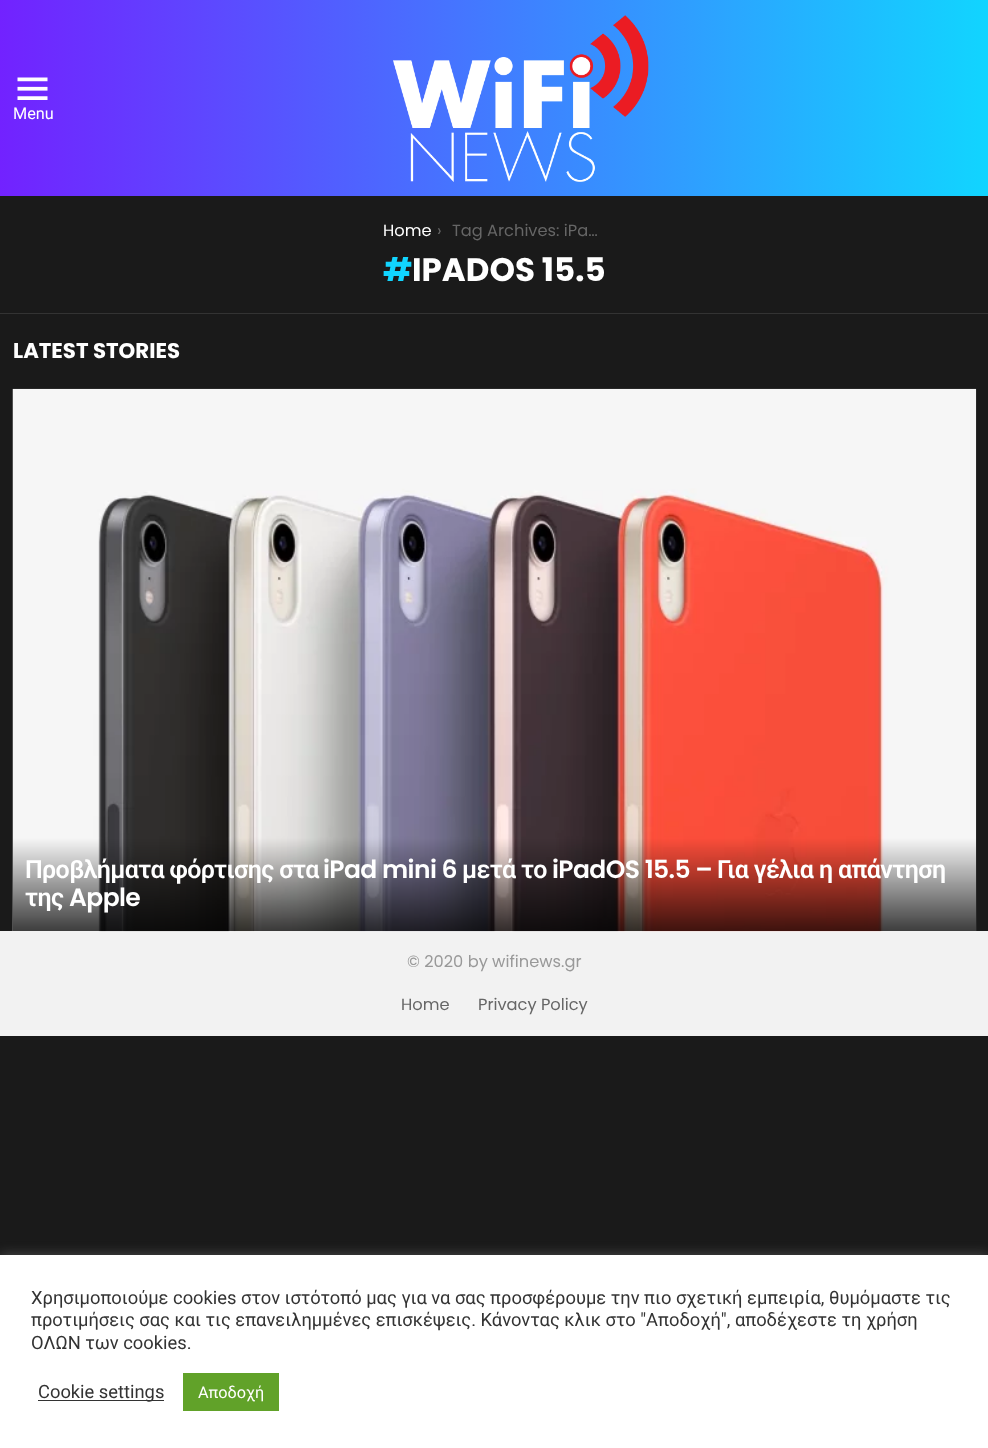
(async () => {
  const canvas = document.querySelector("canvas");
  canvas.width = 988;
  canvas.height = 1448;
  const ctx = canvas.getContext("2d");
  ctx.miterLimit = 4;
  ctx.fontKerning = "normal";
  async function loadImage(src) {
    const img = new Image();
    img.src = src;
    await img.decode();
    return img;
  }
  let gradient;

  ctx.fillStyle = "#1a1a1a";
  ctx.fillRect(0, 0, 988, 1448);
  gradient = ctx.createLinearGradient(0, 98, 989, 98);
  gradient.addColorStop(0, "#7222ff");
  gradient.addColorStop(1, "#11d5ff");
  ctx.fillStyle = gradient;
  ctx.fillRect(0, 0, 988, 196);
  ctx.drawImage(await loadImage("img/1.png"), 17, 77, 31, 23);
  ctx.drawImage(await loadImage("img/2.png"), 393, 15, 256, 167);
  ctx.fillStyle = "#333333";
  ctx.fillRect(0, 313, 988, 1);
  ctx.fillStyle = "#f2f2f2";
  ctx.fillRect(0, 931, 988, 105);
  ctx.drawImage(await loadImage("img/3.png"), 12, 388, 965, 544);
  ctx.fillStyle = "rgba(172, 171, 171, 0.3)";
  ctx.filter = "blur(6px)";
  ctx.beginPath();
  ctx.rect(0, 1254, 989, 194);
  ctx.fill();
  ctx.filter = "none";
  for (const [x, y, w, h, color] of [
    [0, 1255, 988, 193, "#ffffff"],
    [38, 1400, 126, 1, "#333333"],
    [183, 1373, 96, 38, "#61a229"],
  ]) {
    ctx.fillStyle = color;
    ctx.fillRect(x, y, w, h);
  }
  ctx.font = "16.25px Roboto";
  ctx.fillStyle = "#ffffff";
  ctx.fillText("Menu", 13, 119);
  ctx.font = "16.25px Poppins";
  ctx.fillText("Home", 383, 236);
  ctx.fillStyle = "#666666";
  ctx.fillText("›", 437, 236);
  ctx.fillText("Tag Archives: iPa…", 452, 236);
  ctx.font = "bold 32.5px Poppins";
  ctx.fillStyle = "#11d5ff";
  ctx.fillText("#", 383, 281);
  ctx.fillStyle = "#ffffff";
  ctx.fillText("IPADOS 15.5", 412, 281);
  ctx.font = "bold 21.25px Poppins";
  ctx.fillText("LATEST STORIES", 13, 358);
  ctx.letterSpacing = "-0.6px";
  ctx.font = "600 25px Roboto";
  ctx.fillText("Προβλήματα φόρτισης στα", 25, 878);
  ctx.font = "600 25px Poppins";
  ctx.fillText("iPad mini 6", 323, 878);
  ctx.font = "600 25px Roboto";
  ctx.fillText("μετά το", 462, 878);
  ctx.font = "600 25px Poppins";
  ctx.fillText("iPadOS 15.5 –", 552, 878);
  ctx.font = "600 25px Roboto";
  ctx.fillText("Για γέλια η απάντηση", 717, 878);
  ctx.fillText("της", 25, 906);
  ctx.font = "600 25px Poppins";
  ctx.fillText("Apple", 69, 906);
  ctx.letterSpacing = "0px";
  ctx.font = "16.25px Poppins";
  ctx.fillStyle = "#999999";
  ctx.fillText("© 2020 by wifinews.gr", 407, 967);
  ctx.fillStyle = "#666666";
  ctx.fillText("Home", 401, 1010);
  ctx.fillText("Privacy Policy", 478, 1010);
  ctx.font = "18.33px Roboto";
  ctx.fillStyle = "#333333";
  for (const [text, x, y] of [
    ["Χρησιμοποιούμε cookies στον ιστότοπό μας για να σας προσφέρουμε την πιο σχετική εμπειρία, θυμόμαστε τις", 31, 1304],
    ["προτιμήσεις σας και τις επανειλημμένες επισκέψεις. Κάνοντας κλικ στο \"Αποδοχή\", αποδέχεστε τη χρήση", 31, 1326],
    ["ΟΛΩΝ των cookies.", 31, 1349],
    ["Cookie settings", 38, 1398],
  ]) {
    ctx.fillText(text, x, y);
  }
  ctx.font = "16.25px Roboto";
  ctx.fillStyle = "#ffffff";
  ctx.fillText("Αποδοχή", 198, 1398);
})();
